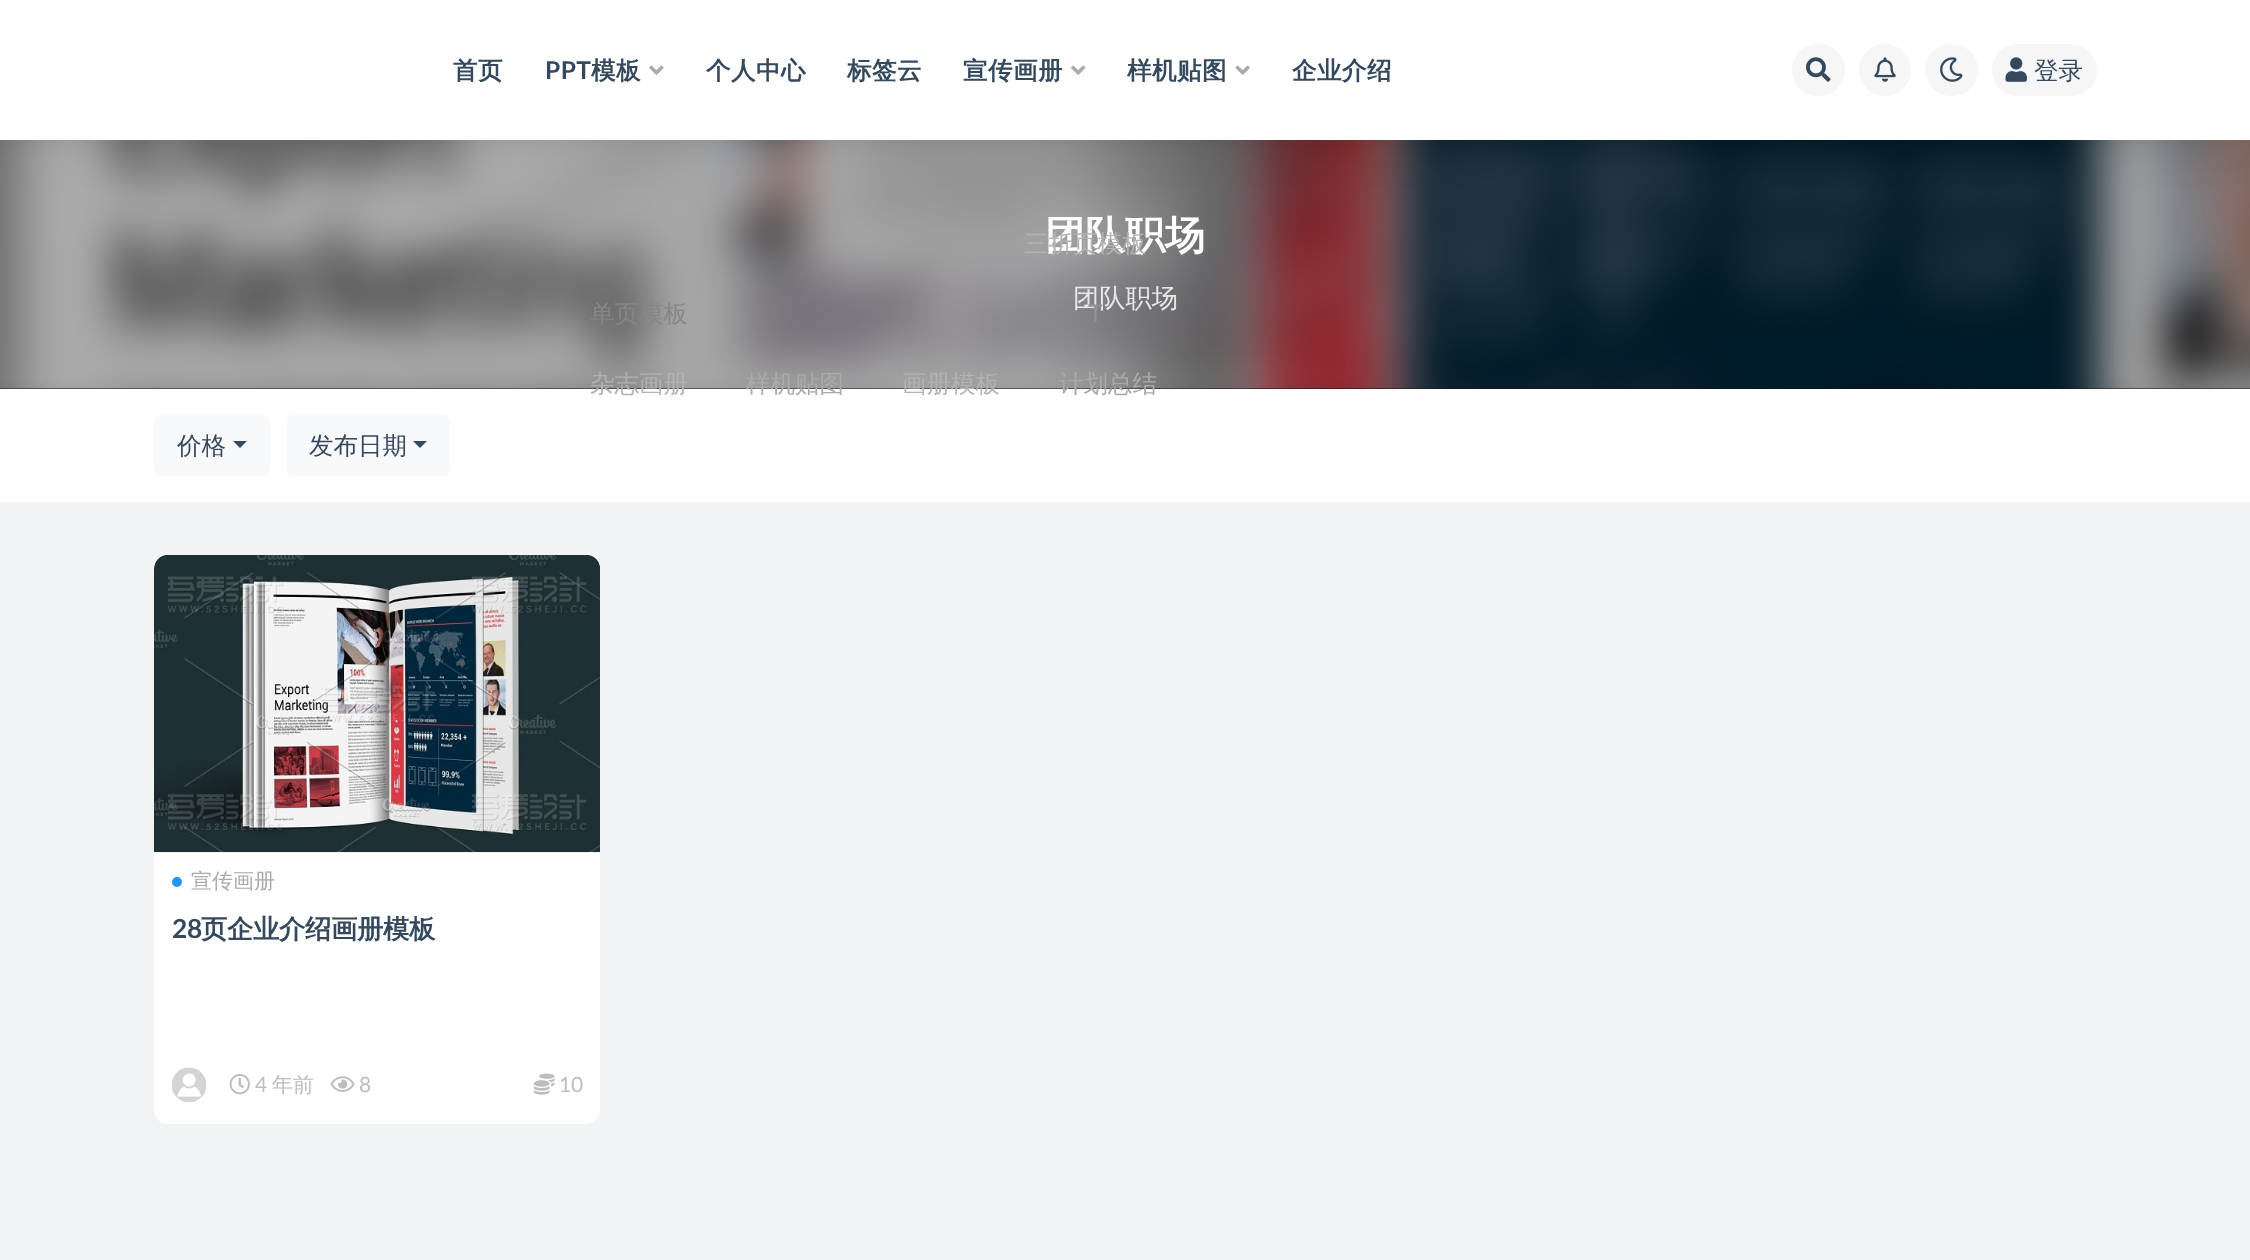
(async () => {
  const canvas = document.querySelector("canvas");
  canvas.width = 2250;
  canvas.height = 1260;
  const ctx = canvas.getContext("2d");
  ctx.miterLimit = 4;
  ctx.fontKerning = "normal";
  async function loadImage(src) {
    const img = new Image();
    img.src = src;
    await img.decode();
    return img;
  }
  let path;

  ctx.fillStyle = "#f0f4f5";
  ctx.fillRect(0, 0, 2250, 1260);
  ctx.fillStyle = "#1a1a1a";
  ctx.fillRect(0, 140, 2250, 249);
  ctx.drawImage(await loadImage("img/8.png"), 0, 140, 2250, 249);
  ctx.fillStyle = "rgba(0, 0, 0, 0.07)";
  ctx.filter = "blur(26px)";
  ctx.beginPath();
  ctx.rect(0, 0, 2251, 140);
  ctx.fill();
  ctx.filter = "none";
  ctx.fillStyle = "rgba(0, 0, 0, 0.3)";
  ctx.filter = "blur(17.5px)";
  ctx.beginPath();
  ctx.rect(-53, 103, 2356, 322);
  ctx.fill();
  ctx.filter = "none";
  ctx.fillStyle = "#ffffff";
  ctx.fillRect(0, 0, 2250, 140);
  ctx.drawImage(await loadImage("img/1.png"), 649, 65, 15, 10);
  ctx.drawImage(await loadImage("img/2.png"), 1071, 65, 15, 10);
  ctx.drawImage(await loadImage("img/3.png"), 1235, 65, 15, 10);
  ctx.fillStyle = "#f6f6f6";
  ctx.beginPath();
  ctx.roundRect(1792, 44, 53, 52, 26);
  ctx.fill();
  ctx.drawImage(await loadImage("img/4.png"), 1806, 57, 25, 25);
  ctx.beginPath();
  ctx.arc(1885, 70, 26, 0, Math.PI * 2);
  ctx.fill();
  ctx.drawImage(await loadImage("img/5.png"), 1874, 57, 22, 25);
  ctx.beginPath();
  ctx.roundRect(1925, 44, 53, 52, 26);
  ctx.fill();
  ctx.drawImage(await loadImage("img/6.png"), 1940, 57, 23, 25);
  ctx.beginPath();
  ctx.roundRect(1992, 44, 105, 52, 26);
  ctx.fill();
  ctx.drawImage(await loadImage("img/7.png"), 2005, 57, 22, 25);
  ctx.fillStyle = "#ffffff";
  ctx.fillRect(0, 389, 2250, 113);
  ctx.fillStyle = "#f8f9fa";
  ctx.beginPath();
  ctx.roundRect(154, 415, 116, 61, 7);
  ctx.fill();
  ctx.fillStyle = "#34495e";
  path = new Path2D("M233 441H247L240 448Z");
  ctx.fill(path);
  ctx.fillStyle = "#f8f9fa";
  ctx.beginPath();
  ctx.roundRect(287, 415, 163, 61, 7);
  ctx.fill();
  ctx.fillStyle = "#34495e";
  path = new Path2D("M413 441H427L420 448Z");
  ctx.fill(path);
  ctx.fillStyle = "#ffffff";
  ctx.beginPath();
  ctx.roundRect(154, 555, 446, 569, 14);
  ctx.fill();
  ctx.drawImage(await loadImage("img/9.png"), 154, 555, 446, 298);
  ctx.fillStyle = "#2196f3";
  ctx.beginPath();
  ctx.arc(177, 882, 5, 0, Math.PI * 2);
  ctx.fill();
  ctx.drawImage(await loadImage("img/10.png"), 171, 1067, 36, 36);
  ctx.drawImage(await loadImage("img/11.png"), 229, 1074, 21, 21);
  ctx.drawImage(await loadImage("img/12.png"), 330, 1076, 25, 16);
  ctx.drawImage(await loadImage("img/13.png"), 533, 1073, 22, 22);
  ctx.letterSpacing = "0.5px";
  ctx.font = "bold 24.5px WenQuanYi Zen Hei";
  ctx.fillStyle = "#34495e";
  ctx.fillText("首页", 453, 79);
  ctx.font = "bold 24.5px Lato";
  ctx.fillText("PPT", 545, 79);
  ctx.font = "bold 24.5px WenQuanYi Zen Hei";
  for (const [text, x, y] of [
    ["模板", 591, 79],
    ["个人中心", 706, 79],
    ["标签云", 847, 79],
    ["宣传画册", 963, 79],
    ["样机贴图", 1127, 79],
    ["企业介绍", 1292, 79],
  ]) {
    ctx.fillText(text, x, y);
  }
  ctx.letterSpacing = "0px";
  ctx.font = "500 24.5px WenQuanYi Zen Hei";
  ctx.fillText("登录", 2034, 79);
  ctx.font = "bold 40px WenQuanYi Zen Hei";
  ctx.fillStyle = "#ffffff";
  ctx.fillText("团队职场", 1045, 249);
  ctx.font = "500 26.25px WenQuanYi Zen Hei";
  ctx.fillStyle = "#e8e8e8";
  ctx.fillText("团队职场", 1073, 307);
  ctx.font = "500 24.5px WenQuanYi Zen Hei";
  ctx.fillStyle = "#34495e";
  ctx.fillText("价格", 177, 454);
  ctx.fillText("发布日期", 309, 454);
  ctx.font = "500 21px WenQuanYi Zen Hei";
  ctx.fillStyle = "#aaaaaa";
  ctx.fillText("宣传画册", 191, 888);
  ctx.letterSpacing = "-0.25px";
  ctx.font = "bold 26.25px Lato";
  ctx.fillStyle = "#34495e";
  ctx.fillText("28", 172, 938);
  ctx.font = "bold 26.25px WenQuanYi Zen Hei";
  ctx.fillText("页企业介绍画册模板", 201, 938);
  ctx.font = "21px Lato";
  ctx.fillStyle = "#bdbdbd";
  ctx.fillText("4", 255, 1092);
  ctx.font = "500 21px WenQuanYi Zen Hei";
  ctx.fillText("年前", 272, 1092);
  ctx.font = "21px Lato";
  ctx.fillText("8", 359, 1092);
  ctx.fillText("10", 559, 1092);
  ctx.letterSpacing = "0px";
  ctx.font = "500 24.5px WenQuanYi Zen Hei";
  ctx.fillStyle = "#b2b2b3";
  ctx.fillText("三折页模板", 1024, 252);
  ctx.fillStyle = "#868686";
  ctx.fillText("单页模板", 590, 322);
  ctx.font = "24.5px Lato";
  ctx.fillStyle = "#929296";
  ctx.fillText("T", 1088, 322);
  ctx.font = "500 24.5px WenQuanYi Zen Hei";
  ctx.fillStyle = "#b2b2b3";
  ctx.fillText("杂志画册", 590, 392);
  ctx.fillStyle = "#aaaaaa";
  ctx.fillText("样机贴图", 746, 392);
  ctx.fillStyle = "#b2b2b3";
  ctx.fillText("画册模板", 902, 392);
  ctx.fillStyle = "#aaaaaa";
  ctx.fillText("计划总结", 1059, 392);
})();
